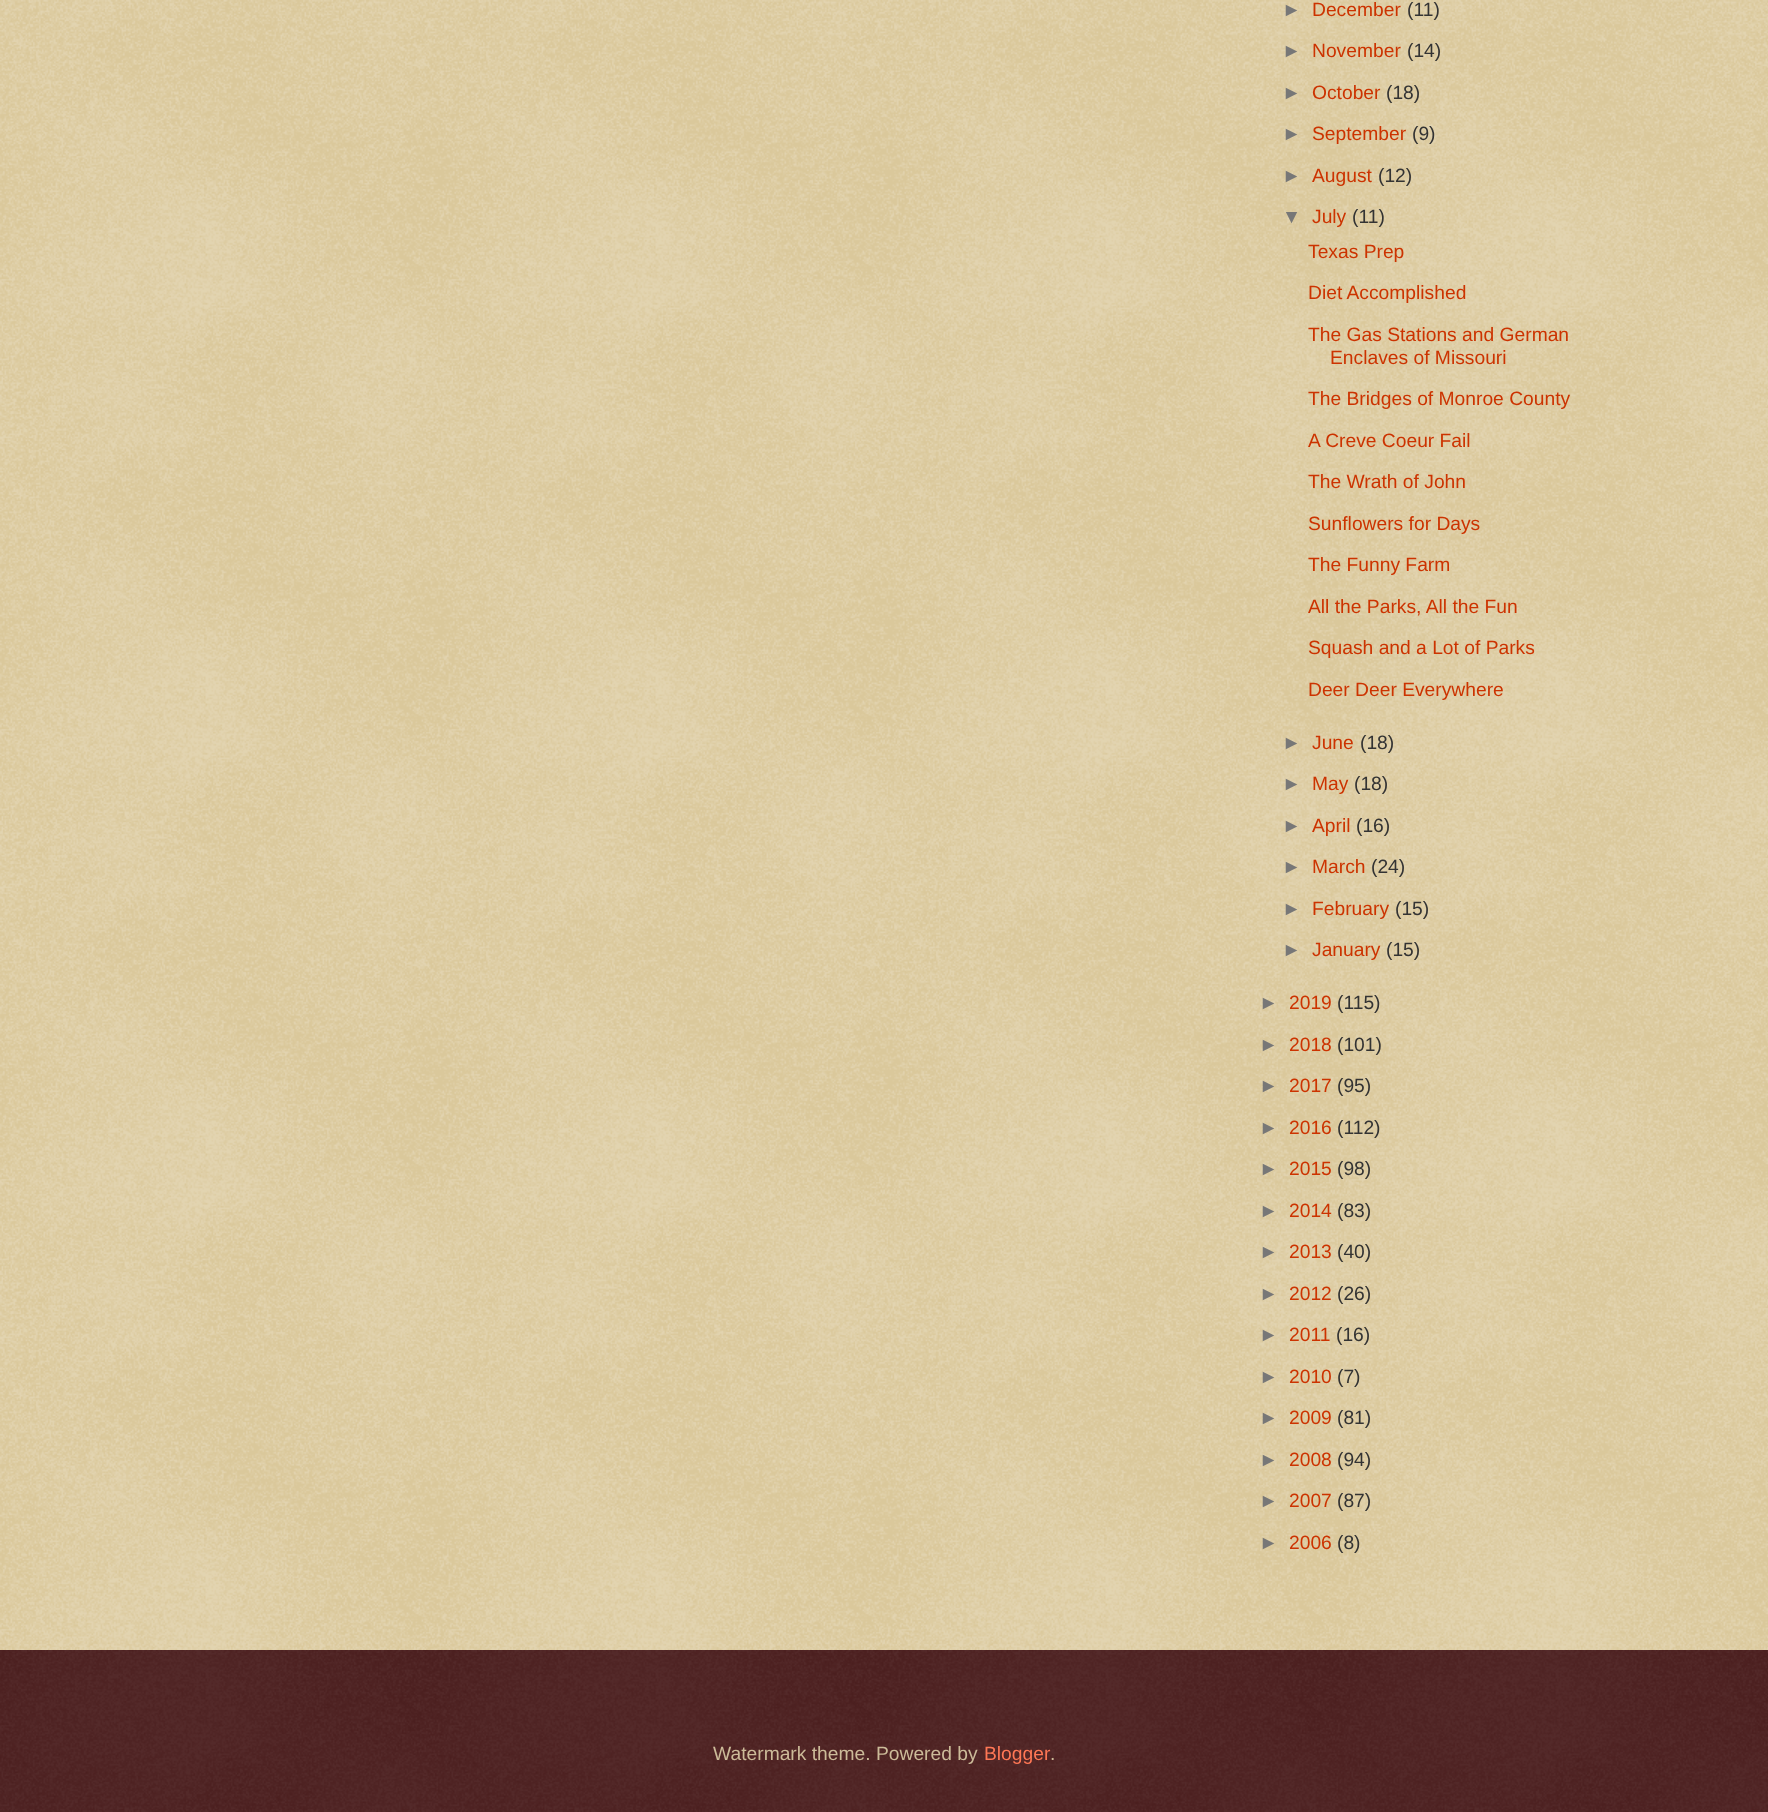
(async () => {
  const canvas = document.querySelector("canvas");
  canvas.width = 1768;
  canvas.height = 1812;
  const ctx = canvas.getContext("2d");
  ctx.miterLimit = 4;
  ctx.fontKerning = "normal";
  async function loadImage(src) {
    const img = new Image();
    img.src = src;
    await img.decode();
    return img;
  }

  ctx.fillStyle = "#c0a154";
  ctx.fillRect(0, 0, 1768, 1812);
  ctx.drawImage(await loadImage("img/1.png"), 0, 0, 1768, 1650);
  ctx.fillStyle = "#330000";
  ctx.fillRect(0, 1650, 1768, 162);
  ctx.drawImage(await loadImage("img/2.png"), 0, 1650, 1768, 162);
  ctx.font = "19.25px Liberation Sans";
  ctx.fillStyle = "#777777";
  ctx.fillText("►", 1282, 16);
  ctx.fillStyle = "#cc3300";
  ctx.fillText("December", 1312, 16);
  ctx.fillStyle = "#333333";
  ctx.fillText("(11)", 1407, 16);
  ctx.fillStyle = "#777777";
  ctx.fillText("►", 1282, 57);
  ctx.fillStyle = "#cc3300";
  ctx.fillText("November", 1312, 57);
  ctx.fillStyle = "#333333";
  ctx.fillText("(14)", 1407, 57);
  ctx.fillStyle = "#777777";
  ctx.fillText("►", 1282, 99);
  ctx.fillStyle = "#cc3300";
  ctx.fillText("October", 1312, 99);
  ctx.fillStyle = "#333333";
  ctx.fillText("(18)", 1386, 99);
  ctx.fillStyle = "#777777";
  ctx.fillText("►", 1282, 140);
  ctx.fillStyle = "#cc3300";
  ctx.fillText("September", 1312, 140);
  ctx.fillStyle = "#333333";
  ctx.fillText("(9)", 1412, 140);
  ctx.fillStyle = "#777777";
  ctx.fillText("►", 1282, 182);
  ctx.fillStyle = "#cc3300";
  ctx.fillText("August", 1312, 182);
  ctx.fillStyle = "#333333";
  ctx.fillText("(12)", 1378, 182);
  ctx.fillStyle = "#777777";
  ctx.fillText("▼", 1282, 223);
  ctx.fillStyle = "#cc3300";
  ctx.fillText("July", 1312, 223);
  ctx.fillStyle = "#333333";
  ctx.fillText("(11)", 1352, 223);
  ctx.fillStyle = "#cc3300";
  for (const [text, x, y] of [
    ["Texas Prep", 1308, 258],
    ["Diet Accomplished", 1308, 299],
    ["The Gas Stations and German", 1308, 341],
    ["Enclaves of Missouri", 1330, 364],
    ["The Bridges of Monroe County", 1308, 405],
    ["A Creve Coeur Fail", 1308, 447],
    ["The Wrath of John", 1308, 488],
    ["Sunflowers for Days", 1308, 530],
    ["The Funny Farm", 1308, 571],
    ["All the Parks, All the Fun", 1308, 613],
    ["Squash and a Lot of Parks", 1308, 654],
    ["Deer Deer Everywhere", 1308, 696],
  ]) {
    ctx.fillText(text, x, y);
  }
  ctx.fillStyle = "#777777";
  ctx.fillText("►", 1282, 749);
  ctx.fillStyle = "#cc3300";
  ctx.fillText("June", 1312, 749);
  ctx.fillStyle = "#333333";
  ctx.fillText("(18)", 1360, 749);
  ctx.fillStyle = "#777777";
  ctx.fillText("►", 1282, 790);
  ctx.fillStyle = "#cc3300";
  ctx.fillText("May", 1312, 790);
  ctx.fillStyle = "#333333";
  ctx.fillText("(18)", 1354, 790);
  ctx.fillStyle = "#777777";
  ctx.fillText("►", 1282, 832);
  ctx.fillStyle = "#cc3300";
  ctx.fillText("April", 1312, 832);
  ctx.fillStyle = "#333333";
  ctx.fillText("(16)", 1356, 832);
  ctx.fillStyle = "#777777";
  ctx.fillText("►", 1282, 873);
  ctx.fillStyle = "#cc3300";
  ctx.fillText("March", 1312, 873);
  ctx.fillStyle = "#333333";
  ctx.fillText("(24)", 1371, 873);
  ctx.fillStyle = "#777777";
  ctx.fillText("►", 1282, 915);
  ctx.fillStyle = "#cc3300";
  ctx.fillText("February", 1312, 915);
  ctx.fillStyle = "#333333";
  ctx.fillText("(15)", 1395, 915);
  ctx.fillStyle = "#777777";
  ctx.fillText("►", 1282, 956);
  ctx.fillStyle = "#cc3300";
  ctx.fillText("January", 1312, 956);
  ctx.fillStyle = "#333333";
  ctx.fillText("(15)", 1386, 956);
  ctx.fillStyle = "#777777";
  ctx.fillText("►", 1259, 1009);
  ctx.fillStyle = "#cc3300";
  ctx.fillText("2019", 1289, 1009);
  ctx.fillStyle = "#333333";
  ctx.fillText("(115)", 1337, 1009);
  ctx.fillStyle = "#777777";
  ctx.fillText("►", 1259, 1051);
  ctx.fillStyle = "#cc3300";
  ctx.fillText("2018", 1289, 1051);
  ctx.fillStyle = "#333333";
  ctx.fillText("(101)", 1337, 1051);
  ctx.fillStyle = "#777777";
  ctx.fillText("►", 1259, 1092);
  ctx.fillStyle = "#cc3300";
  ctx.fillText("2017", 1289, 1092);
  ctx.fillStyle = "#333333";
  ctx.fillText("(95)", 1337, 1092);
  ctx.fillStyle = "#777777";
  ctx.fillText("►", 1259, 1134);
  ctx.fillStyle = "#cc3300";
  ctx.fillText("2016", 1289, 1134);
  ctx.fillStyle = "#333333";
  ctx.fillText("(112)", 1337, 1134);
  ctx.fillStyle = "#777777";
  ctx.fillText("►", 1259, 1175);
  ctx.fillStyle = "#cc3300";
  ctx.fillText("2015", 1289, 1175);
  ctx.fillStyle = "#333333";
  ctx.fillText("(98)", 1337, 1175);
  ctx.fillStyle = "#777777";
  ctx.fillText("►", 1259, 1217);
  ctx.fillStyle = "#cc3300";
  ctx.fillText("2014", 1289, 1217);
  ctx.fillStyle = "#333333";
  ctx.fillText("(83)", 1337, 1217);
  ctx.fillStyle = "#777777";
  ctx.fillText("►", 1259, 1258);
  ctx.fillStyle = "#cc3300";
  ctx.fillText("2013", 1289, 1258);
  ctx.fillStyle = "#333333";
  ctx.fillText("(40)", 1337, 1258);
  ctx.fillStyle = "#777777";
  ctx.fillText("►", 1259, 1300);
  ctx.fillStyle = "#cc3300";
  ctx.fillText("2012", 1289, 1300);
  ctx.fillStyle = "#333333";
  ctx.fillText("(26)", 1337, 1300);
  ctx.fillStyle = "#777777";
  ctx.fillText("►", 1259, 1341);
  ctx.fillStyle = "#cc3300";
  ctx.fillText("2011", 1289, 1341);
  ctx.fillStyle = "#333333";
  ctx.fillText("(16)", 1336, 1341);
  ctx.fillStyle = "#777777";
  ctx.fillText("►", 1259, 1383);
  ctx.fillStyle = "#cc3300";
  ctx.fillText("2010", 1289, 1383);
  ctx.fillStyle = "#333333";
  ctx.fillText("(7)", 1337, 1383);
  ctx.fillStyle = "#777777";
  ctx.fillText("►", 1259, 1424);
  ctx.fillStyle = "#cc3300";
  ctx.fillText("2009", 1289, 1424);
  ctx.fillStyle = "#333333";
  ctx.fillText("(81)", 1337, 1424);
  ctx.fillStyle = "#777777";
  ctx.fillText("►", 1259, 1466);
  ctx.fillStyle = "#cc3300";
  ctx.fillText("2008", 1289, 1466);
  ctx.fillStyle = "#333333";
  ctx.fillText("(94)", 1337, 1466);
  ctx.fillStyle = "#777777";
  ctx.fillText("►", 1259, 1507);
  ctx.fillStyle = "#cc3300";
  ctx.fillText("2007", 1289, 1507);
  ctx.fillStyle = "#333333";
  ctx.fillText("(87)", 1337, 1507);
  ctx.fillStyle = "#777777";
  ctx.fillText("►", 1259, 1549);
  ctx.fillStyle = "#cc3300";
  ctx.fillText("2006", 1289, 1549);
  ctx.fillStyle = "#333333";
  ctx.fillText("(8)", 1337, 1549);
  ctx.fillStyle = "#ccbb99";
  ctx.fillText("Watermark theme. Powered by", 713, 1760);
  ctx.fillStyle = "#ff7755";
  ctx.fillText("Blogger", 984, 1760);
  ctx.fillStyle = "#ccbb99";
  ctx.fillText(".", 1050, 1760);
})();
